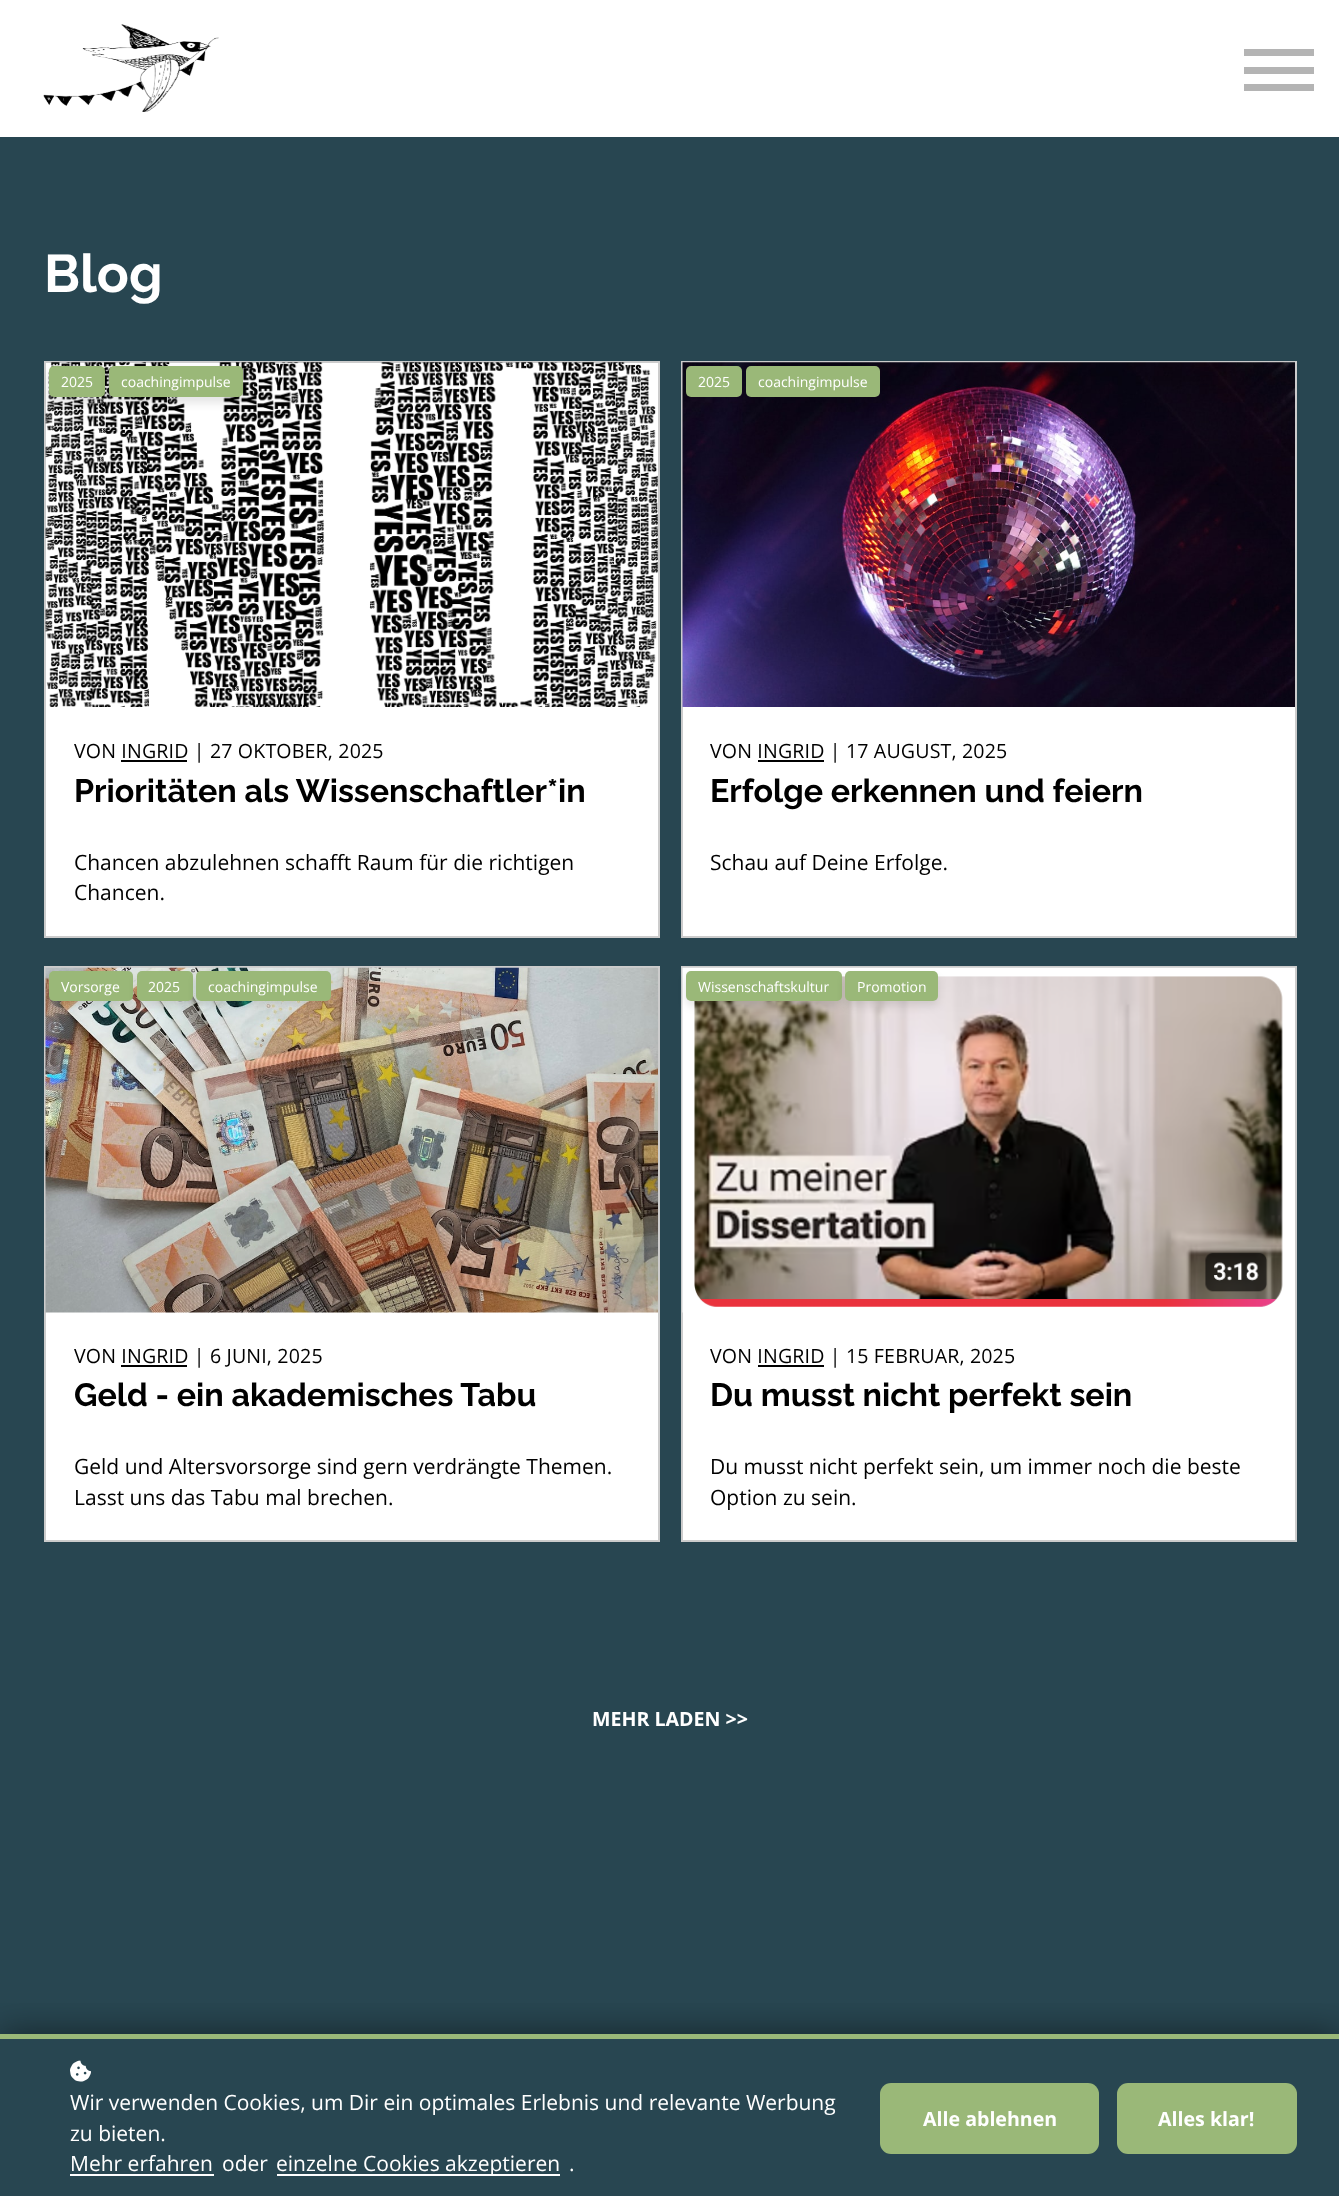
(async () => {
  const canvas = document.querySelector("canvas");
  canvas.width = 1339;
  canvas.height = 2196;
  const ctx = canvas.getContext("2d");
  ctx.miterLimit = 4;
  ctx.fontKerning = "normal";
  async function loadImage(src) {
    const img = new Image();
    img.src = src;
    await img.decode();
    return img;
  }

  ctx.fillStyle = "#284651";
  ctx.fillRect(0, 0, 1339, 2196);
  ctx.fillStyle = "#ffffff";
  ctx.fillRect(0, 0, 1339, 137);
  ctx.drawImage(await loadImage("img/1.png"), 43, 24, 176, 88);
  for (const [x, y, w, h, color] of [
    [1244, 84, 70, 7, "#b4b4b4"],
    [1244, 49, 70, 7, "#b4b4b4"],
    [1244, 67, 70, 7, "#b4b4b4"],
  ]) {
    ctx.fillStyle = color;
    ctx.fillRect(x, y, w, h);
  }
  ctx.fillStyle = "#ffffff";
  ctx.beginPath();
  ctx.rect(45, 362, 614, 575);
  ctx.fill();
  ctx.strokeStyle = "#cccccc";
  ctx.lineWidth = 2;
  ctx.stroke();
  ctx.drawImage(await loadImage("img/2.png"), 45, 362, 613, 345);
  ctx.fillStyle = "rgba(0, 0, 0, 0.1)";
  ctx.filter = "blur(4.5px)";
  ctx.beginPath();
  ctx.roundRect(49, 371, 56, 32, 5);
  ctx.fill();
  ctx.filter = "none";
  ctx.fillStyle = "#9ab878";
  ctx.beginPath();
  ctx.roundRect(49, 366, 56, 31, 5);
  ctx.fill();
  ctx.fillStyle = "rgba(0, 0, 0, 0.1)";
  ctx.filter = "blur(4.5px)";
  ctx.beginPath();
  ctx.roundRect(109, 371, 134, 32, 5);
  ctx.fill();
  ctx.filter = "none";
  ctx.fillStyle = "#9ab878";
  ctx.beginPath();
  ctx.roundRect(109, 366, 134, 31, 5);
  ctx.fill();
  ctx.fillStyle = "#000000";
  ctx.fillRect(121, 760, 66, 2);
  ctx.fillStyle = "#ffffff";
  ctx.fillRect(683, 707, 612, 229);
  ctx.strokeRect(682, 362, 614, 575);
  ctx.drawImage(await loadImage("img/3.png"), 682, 362, 613, 345);
  ctx.fillStyle = "#9ab878";
  ctx.beginPath();
  ctx.roundRect(686, 366, 56, 31, 5);
  ctx.fill();
  ctx.beginPath();
  ctx.roundRect(746, 366, 134, 31, 5);
  ctx.fill();
  ctx.fillStyle = "#000000";
  ctx.fillRect(758, 760, 66, 2);
  ctx.fillStyle = "#ffffff";
  ctx.fillRect(46, 1312, 612, 228);
  ctx.strokeRect(45, 967, 614, 574);
  ctx.drawImage(await loadImage("img/4.png"), 45, 967, 613, 346);
  ctx.fillStyle = "rgba(0, 0, 0, 0.1)";
  ctx.filter = "blur(4.5px)";
  ctx.beginPath();
  ctx.roundRect(49, 977, 84, 29, 5);
  ctx.fill();
  ctx.filter = "none";
  ctx.fillStyle = "#9ab878";
  ctx.beginPath();
  ctx.roundRect(49, 971, 84, 30, 5);
  ctx.fill();
  ctx.fillStyle = "rgba(0, 0, 0, 0.1)";
  ctx.filter = "blur(4.5px)";
  ctx.beginPath();
  ctx.roundRect(137, 977, 56, 29, 5);
  ctx.fill();
  ctx.filter = "none";
  ctx.fillStyle = "#9ab878";
  ctx.beginPath();
  ctx.roundRect(137, 971, 56, 30, 5);
  ctx.fill();
  ctx.fillStyle = "rgba(0, 0, 0, 0.1)";
  ctx.filter = "blur(4.5px)";
  ctx.beginPath();
  ctx.roundRect(196, 977, 135, 29, 5);
  ctx.fill();
  ctx.filter = "none";
  ctx.fillStyle = "#9ab878";
  ctx.beginPath();
  ctx.roundRect(196, 971, 135, 30, 5);
  ctx.fill();
  ctx.fillStyle = "#000000";
  ctx.fillRect(121, 1365, 66, 2);
  ctx.fillStyle = "#ffffff";
  ctx.fillRect(683, 1312, 612, 228);
  ctx.strokeRect(682, 967, 614, 574);
  ctx.drawImage(await loadImage("img/5.png"), 682, 967, 613, 346);
  ctx.fillStyle = "rgba(0, 0, 0, 0.1)";
  ctx.filter = "blur(4.5px)";
  ctx.beginPath();
  ctx.roundRect(686, 977, 156, 29, 5);
  ctx.fill();
  ctx.filter = "none";
  ctx.fillStyle = "#9ab878";
  ctx.beginPath();
  ctx.roundRect(686, 971, 156, 30, 5);
  ctx.fill();
  ctx.fillStyle = "rgba(0, 0, 0, 0.1)";
  ctx.filter = "blur(4.5px)";
  ctx.beginPath();
  ctx.roundRect(845, 977, 93, 29, 5);
  ctx.fill();
  ctx.filter = "none";
  ctx.fillStyle = "#9ab878";
  ctx.beginPath();
  ctx.roundRect(845, 971, 93, 30, 5);
  ctx.fill();
  ctx.fillStyle = "#000000";
  ctx.fillRect(758, 1365, 66, 2);
  ctx.save();
  ctx.beginPath();
  ctx.rect(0, 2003, 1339, 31);
  ctx.clip();
  ctx.fillStyle = "rgba(0, 0, 0, 0.5)";
  ctx.filter = "blur(17.5px)";
  ctx.beginPath();
  ctx.rect(0, 2034, 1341, 162);
  ctx.fill();
  ctx.filter = "none";
  ctx.restore();
  ctx.fillStyle = "#9ab878";
  ctx.fillRect(0, 2034, 1339, 5);
  ctx.drawImage(await loadImage("img/6.png"), 70, 2060, 21, 22);
  ctx.fillStyle = "#ffffff";
  ctx.fillRect(70, 2174, 144, 2);
  ctx.fillRect(277, 2174, 283, 2);
  ctx.fillStyle = "#9ab878";
  ctx.beginPath();
  ctx.roundRect(880, 2083, 219, 71, 11);
  ctx.fill();
  ctx.beginPath();
  ctx.roundRect(1117, 2083, 180, 71, 11);
  ctx.fill();
  ctx.font = "bold 53px Raleway";
  ctx.fillStyle = "#ffffff";
  ctx.fillText("Blog", 44, 292);
  ctx.font = "14px Open Sans";
  ctx.fillText("2025", 61, 387);
  ctx.fillText("coachingimpulse", 121, 387);
  ctx.letterSpacing = "0.15px";
  ctx.font = "19.6px Open Sans";
  ctx.fillStyle = "#000000";
  ctx.fillText("VON INGRID | 27 OKTOBER, 2025", 74, 758);
  ctx.letterSpacing = "0px";
  ctx.font = "bold 32.25px Raleway";
  ctx.fillText("Prioritäten als Wissenschaftler*in", 74, 802);
  ctx.font = "21px Open Sans";
  ctx.fillText("Chancen abzulehnen schafft Raum für die richtigen", 74, 870);
  ctx.fillText("Chancen.", 74, 900);
  ctx.font = "14px Open Sans";
  ctx.fillStyle = "#ffffff";
  ctx.fillText("2025", 698, 387);
  ctx.fillText("coachingimpulse", 758, 387);
  ctx.letterSpacing = "0.15px";
  ctx.font = "19.6px Open Sans";
  ctx.fillStyle = "#000000";
  ctx.fillText("VON INGRID | 17 AUGUST, 2025", 710, 758);
  ctx.letterSpacing = "0px";
  ctx.font = "bold 32.25px Raleway";
  ctx.fillText("Erfolge erkennen und feiern", 710, 802);
  ctx.font = "21px Open Sans";
  ctx.fillText("Schau auf Deine Erfolge.", 710, 870);
  ctx.font = "14px Open Sans";
  ctx.fillStyle = "#ffffff";
  for (const [text, x, y] of [
    ["Vorsorge", 61, 992],
    ["2025", 148, 992],
    ["coachingimpulse", 208, 992],
  ]) {
    ctx.fillText(text, x, y);
  }
  ctx.letterSpacing = "0.15px";
  ctx.font = "19.6px Open Sans";
  ctx.fillStyle = "#000000";
  ctx.fillText("VON INGRID | 6 JUNI, 2025", 74, 1363);
  ctx.letterSpacing = "0px";
  ctx.font = "bold 32.25px Raleway";
  ctx.fillText("Geld - ein akademisches Tabu", 74, 1406);
  ctx.font = "21px Open Sans";
  ctx.fillText("Geld und Altersvorsorge sind gern verdrängte Themen.", 74, 1474);
  ctx.fillText("Lasst uns das Tabu mal brechen.", 74, 1505);
  ctx.font = "14px Open Sans";
  ctx.fillStyle = "#ffffff";
  ctx.fillText("Wissenschaftskultur", 698, 992);
  ctx.fillText("Promotion", 857, 992);
  ctx.letterSpacing = "0.15px";
  ctx.font = "19.6px Open Sans";
  ctx.fillStyle = "#000000";
  ctx.fillText("VON INGRID | 15 FEBRUAR, 2025", 710, 1363);
  ctx.letterSpacing = "0px";
  ctx.font = "bold 32.25px Raleway";
  ctx.fillText("Du musst nicht perfekt sein", 710, 1406);
  ctx.font = "21px Open Sans";
  ctx.fillText("Du musst nicht perfekt sein, um immer noch die beste", 710, 1474);
  ctx.fillText("Option zu sein.", 710, 1505);
  ctx.font = "bold 19.6px Open Sans";
  ctx.fillStyle = "#ffffff";
  ctx.fillText("MEHR LADEN >>", 592, 1726);
  ctx.font = "21px Open Sans";
  for (const [text, x, y] of [
    ["Wir verwenden Cookies, um Dir ein optimales Erlebnis und relevante Werbung", 70, 2110],
    ["zu bieten.", 70, 2141],
    ["Mehr erfahren", 70, 2171],
    ["oder", 222, 2171],
    ["einzelne Cookies akzeptieren", 276, 2171],
    [".", 569, 2171],
  ]) {
    ctx.fillText(text, x, y);
  }
  ctx.font = "bold 19.6px Open Sans";
  ctx.fillText("Alle ablehnen", 923, 2126);
  ctx.fillText("Alles klar!", 1158, 2126);
})();
